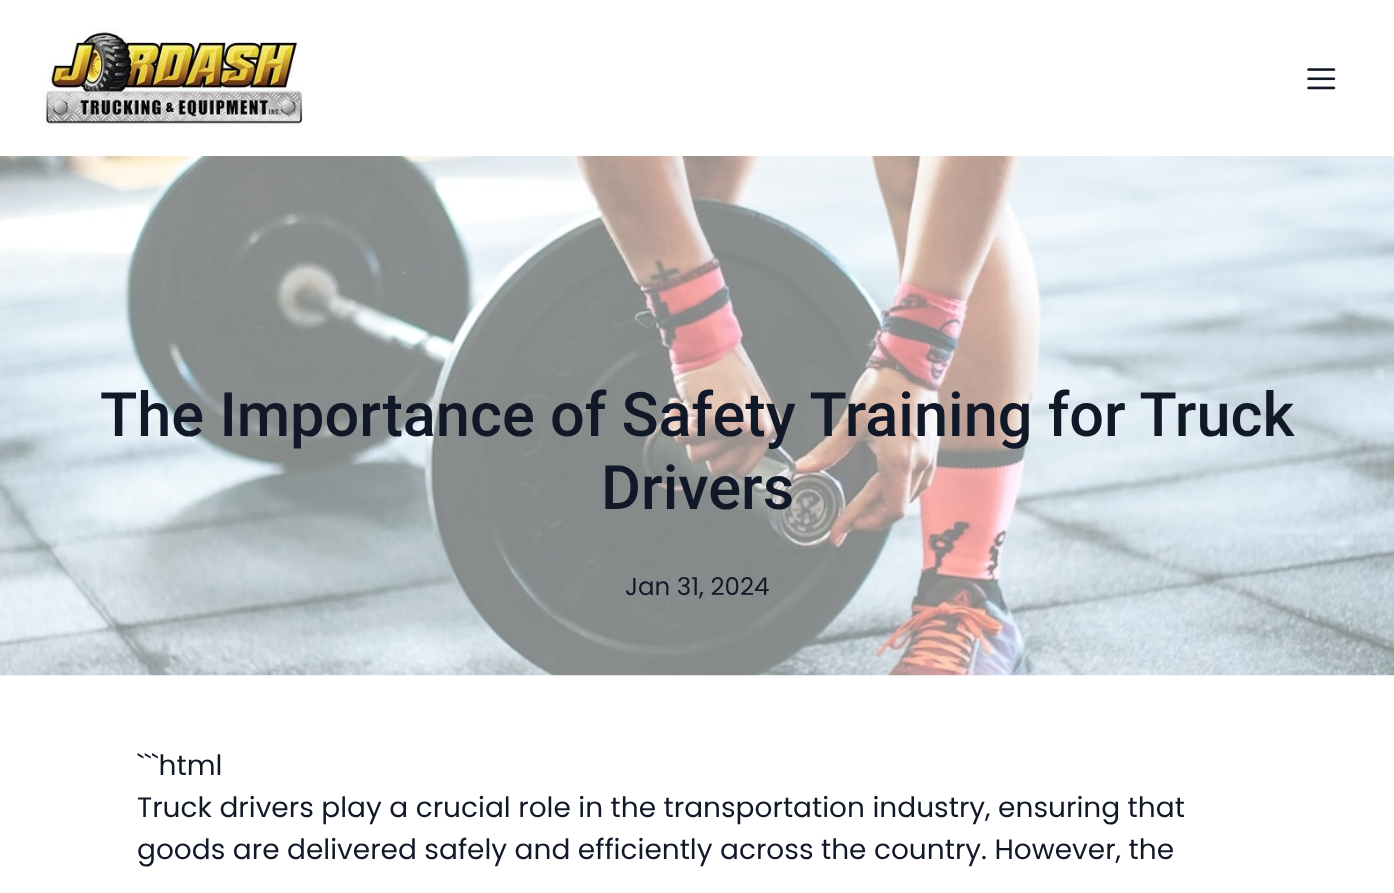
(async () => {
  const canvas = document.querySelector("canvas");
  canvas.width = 1394;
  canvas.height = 893;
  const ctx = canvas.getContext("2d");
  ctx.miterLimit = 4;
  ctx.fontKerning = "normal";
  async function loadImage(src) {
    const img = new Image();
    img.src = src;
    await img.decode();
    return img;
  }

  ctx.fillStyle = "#ffffff";
  ctx.fillRect(0, 0, 1394, 893);
  ctx.drawImage(await loadImage("img/1.png"), 42, 28, 261, 99);
  ctx.drawImage(await loadImage("img/2.png"), 1307, 68, 29, 22);
  ctx.drawImage(await loadImage("img/3.png"), 0, 156, 1394, 520);
  ctx.font = "500 61.25px Roboto";
  ctx.fillStyle = "#111827";
  ctx.fillText("The Importance of Safety Training for Truck", 100, 436);
  ctx.fillText("Drivers", 601, 509);
  ctx.font = "24.5px Poppins";
  ctx.fillText("Jan 31, 2024", 625, 595);
  ctx.font = "28px Poppins";
  for (const [text, x, y] of [
    ["```html", 137, 775],
    ["Truck drivers play a crucial role in the transportation industry, ensuring that", 137, 817],
    ["goods are delivered safely and efficiently across the country. However, the", 137, 859],
  ]) {
    ctx.fillText(text, x, y);
  }
})();
